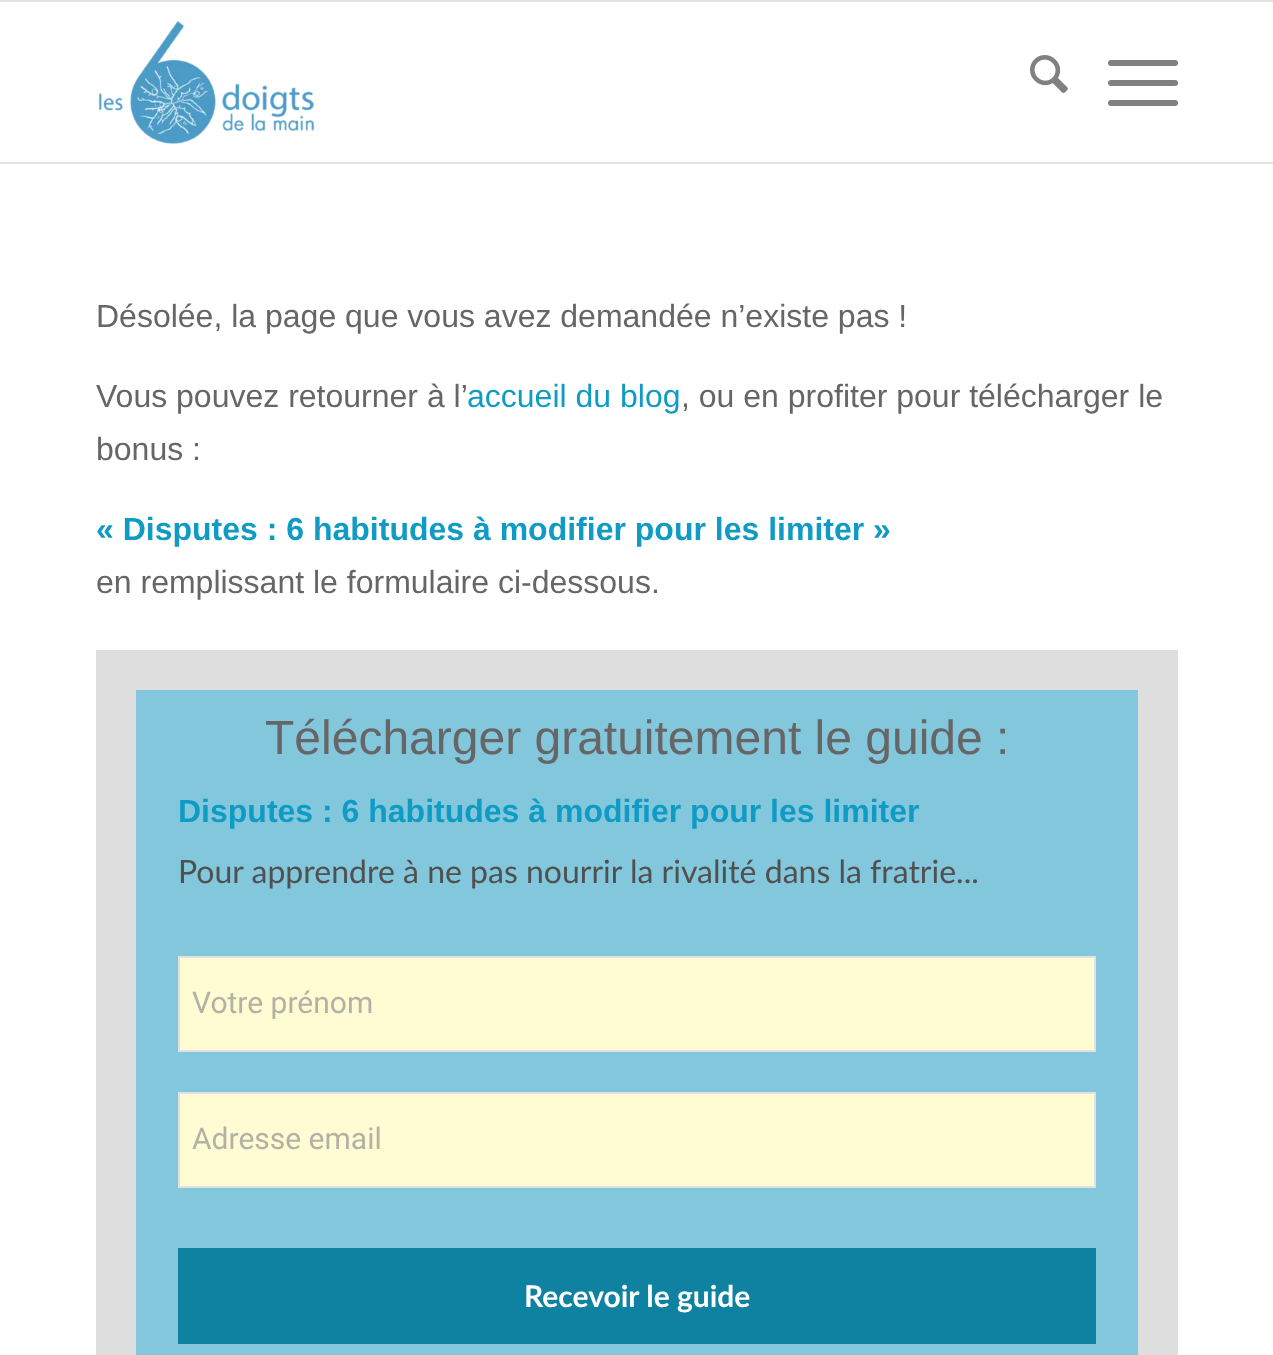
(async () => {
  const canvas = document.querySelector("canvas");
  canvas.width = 1273;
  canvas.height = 1355;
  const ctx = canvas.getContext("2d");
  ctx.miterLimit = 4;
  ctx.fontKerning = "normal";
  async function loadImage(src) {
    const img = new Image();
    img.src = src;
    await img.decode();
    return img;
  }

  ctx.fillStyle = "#ffffff";
  ctx.fillRect(0, 0, 1273, 1355);
  ctx.fillStyle = "#e1e1e1";
  ctx.fillRect(0, 0, 1273, 2);
  ctx.fillRect(0, 162, 1273, 2);
  ctx.drawImage(await loadImage("img/1.png"), 98, 21, 216, 123);
  ctx.drawImage(await loadImage("img/2.png"), 1030, 55, 38, 38);
  ctx.fillStyle = "#808080";
  ctx.beginPath();
  ctx.roundRect(1108, 80, 70, 6, 3);
  ctx.fill();
  ctx.beginPath();
  ctx.roundRect(1108, 60, 70, 6, 3);
  ctx.fill();
  ctx.beginPath();
  ctx.roundRect(1108, 100, 70, 6, 3);
  ctx.fill();
  ctx.fillStyle = "#dedede";
  ctx.fillRect(96, 650, 1082, 705);
  ctx.fillStyle = "#83c7dc";
  ctx.fillRect(136, 690, 1002, 665);
  ctx.fillStyle = "#fffcd3";
  ctx.beginPath();
  ctx.rect(179, 957, 916, 94);
  ctx.fill();
  ctx.strokeStyle = "#e1e1e1";
  ctx.lineWidth = 2;
  ctx.stroke();
  ctx.beginPath();
  ctx.rect(179, 1093, 916, 94);
  ctx.fill();
  ctx.stroke();
  ctx.fillStyle = "#0f81a1";
  ctx.fillRect(178, 1248, 918, 96);
  ctx.font = "32px Liberation Sans";
  ctx.fillStyle = "#666666";
  ctx.fillText("Désolée, la page que vous avez demandée n’existe pas !", 96, 327);
  ctx.fillText("Vous pouvez retourner à l’", 96, 407);
  ctx.fillStyle = "#109bc5";
  ctx.fillText("accueil du blog", 467, 407);
  ctx.fillStyle = "#666666";
  ctx.fillText(", ou en profiter pour télécharger le", 681, 407);
  ctx.fillText("bonus :", 96, 460);
  ctx.font = "bold 32px Liberation Sans";
  ctx.fillStyle = "#109bc5";
  ctx.fillText("« Disputes : 6 habitudes à modifier pour les limiter »", 96, 540);
  ctx.font = "32px Liberation Sans";
  ctx.fillStyle = "#666666";
  ctx.fillText("en remplissant le formulaire ci-dessous.", 96, 593);
  ctx.font = "48px Liberation Sans";
  ctx.fillText("Télécharger gratuitement le guide :", 265, 754);
  ctx.font = "bold 32px Liberation Sans";
  ctx.fillStyle = "#109bc5";
  ctx.fillText("Disputes : 6 habitudes à modifier pour les limiter", 178, 822);
  ctx.font = "32px Lato";
  ctx.fillStyle = "#505050";
  ctx.fillText("Pour apprendre à ne pas nourrir la rivalité dans la fratrie...", 178, 883);
  ctx.font = "30px Roboto";
  ctx.fillStyle = "#b2b1a5";
  ctx.fillText("Votre prénom", 192, 1013);
  ctx.fillText("Adresse email", 192, 1149);
  ctx.font = "bold 30px Lato";
  ctx.fillStyle = "#ffffff";
  ctx.fillText("Recevoir le guide", 524, 1307);
})();
